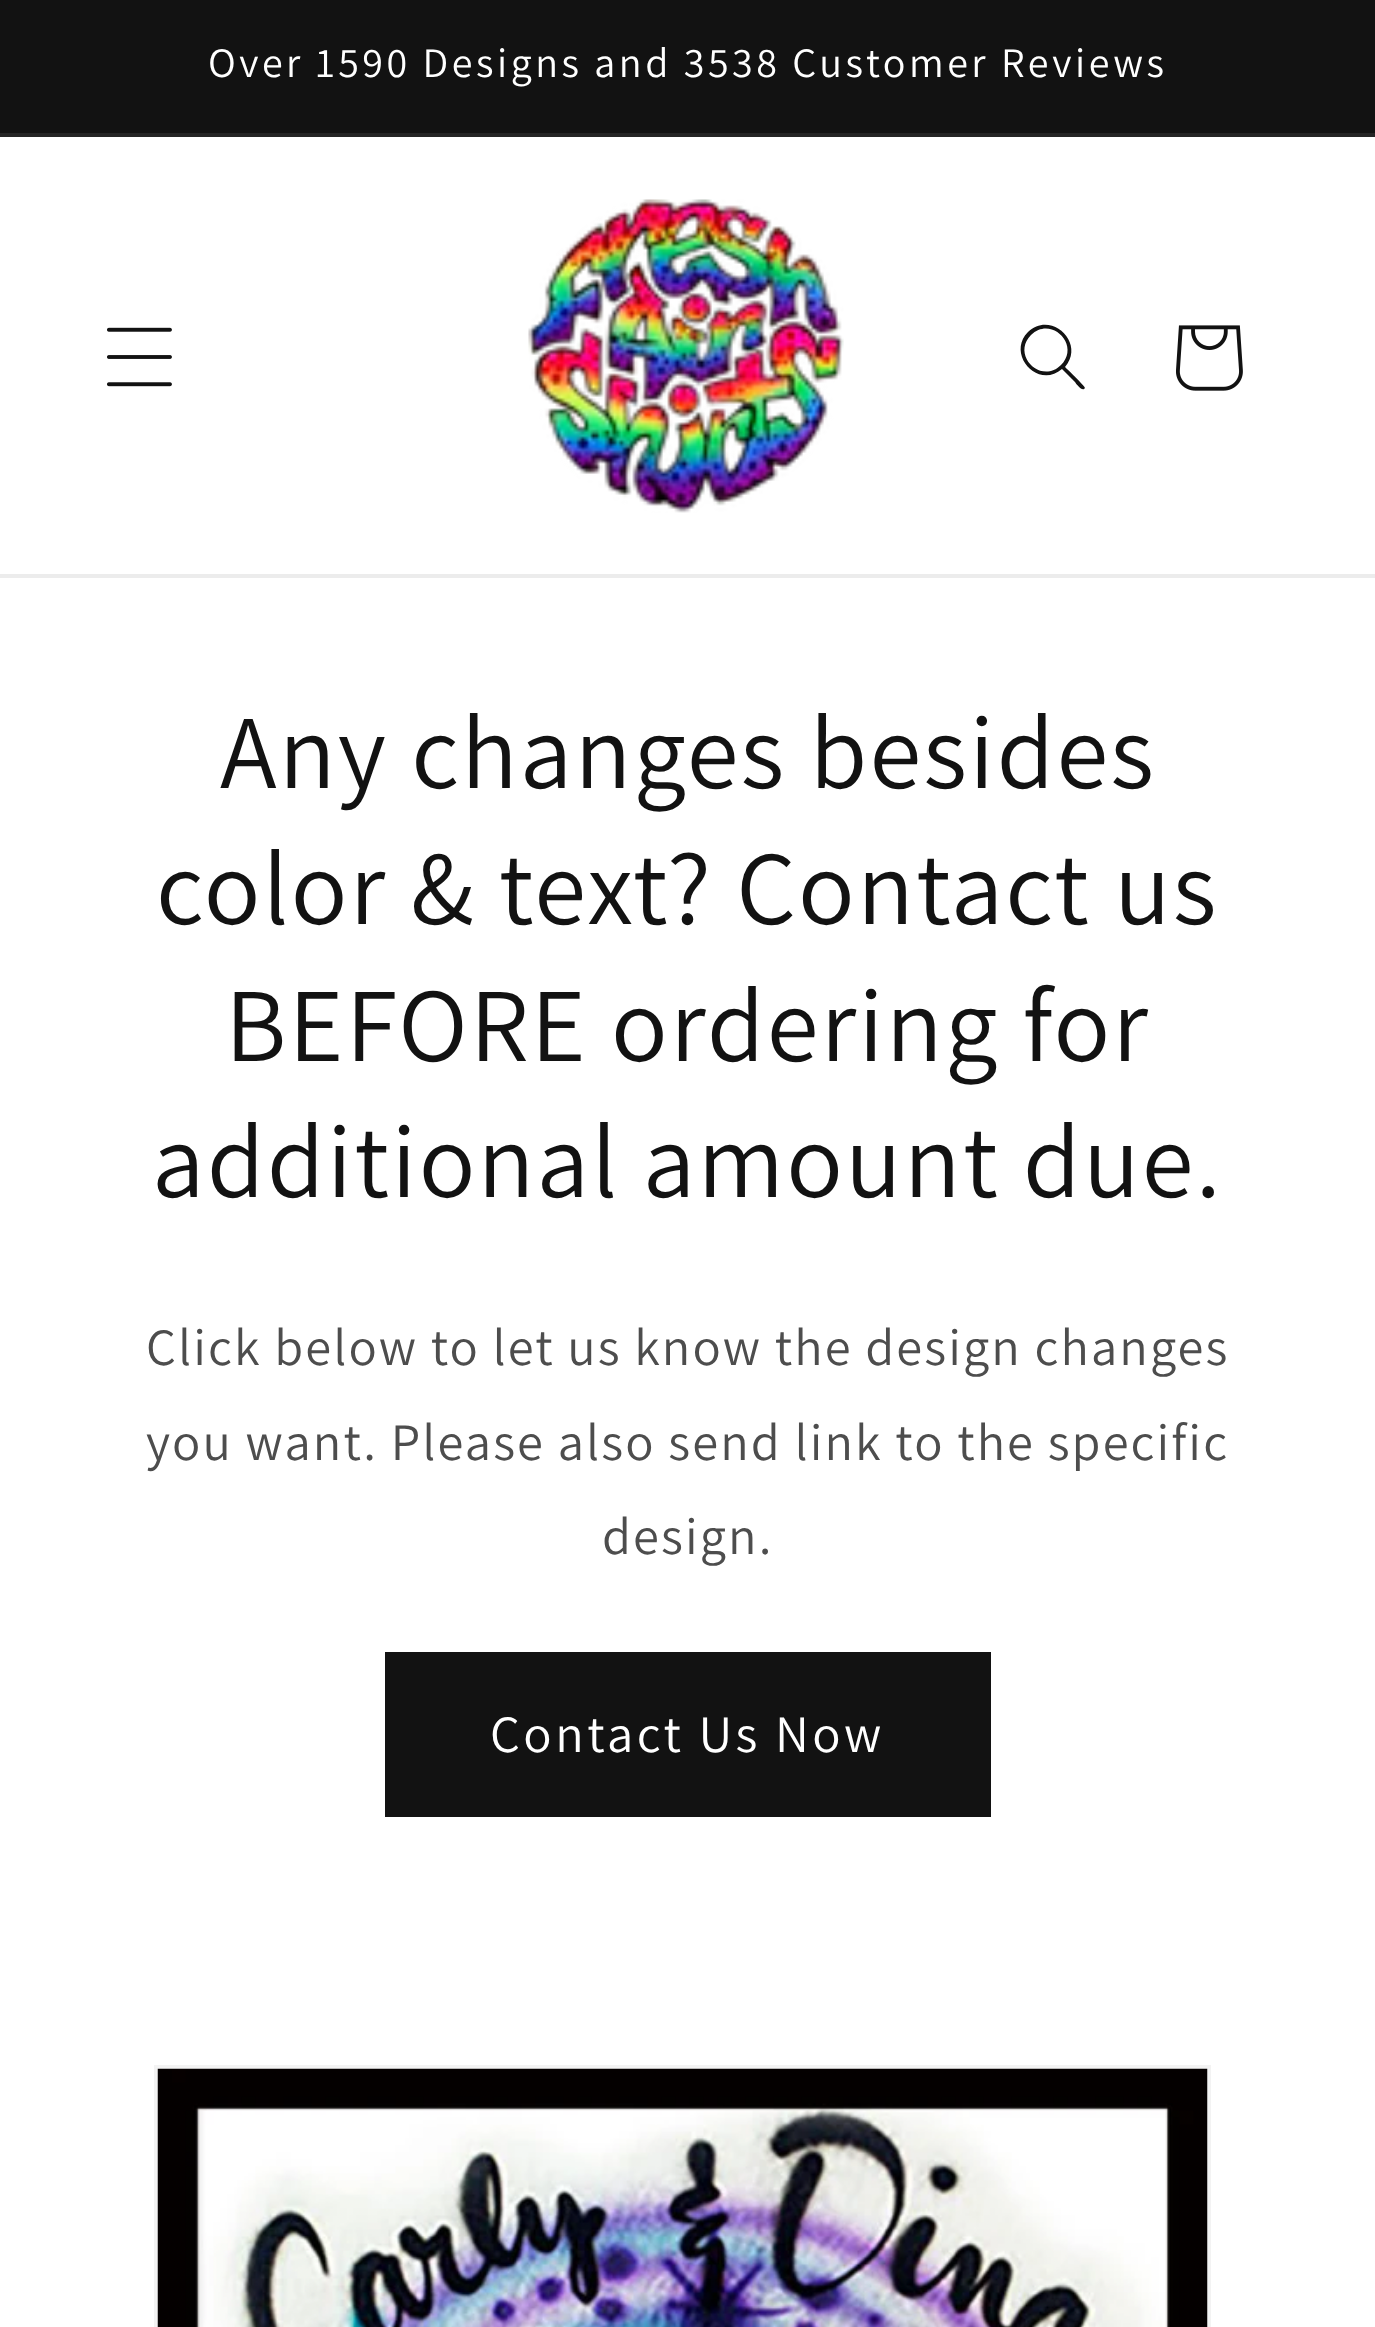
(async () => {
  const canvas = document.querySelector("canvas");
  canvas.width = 1375;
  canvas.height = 2327;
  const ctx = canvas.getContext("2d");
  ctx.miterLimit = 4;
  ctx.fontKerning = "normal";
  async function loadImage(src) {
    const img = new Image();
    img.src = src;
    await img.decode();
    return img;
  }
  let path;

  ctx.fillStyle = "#ffffff";
  ctx.fillRect(0, 0, 1375, 2327);
  for (const [x, y, w, h, color] of [
    [0, 0, 1375, 133, "#121212"],
    [0, 133, 1375, 4, "#252525"],
    [0, 574, 1375, 4, "#ececec"],
  ]) {
    ctx.fillStyle = color;
    ctx.fillRect(x, y, w, h);
  }
  ctx.drawImage(await loadImage("img/1.png"), 107, 327, 65, 60);
  ctx.drawImage(await loadImage("img/2.png"), 528, 199, 316, 314);
  ctx.fillStyle = "#121212";
  path = new Path2D("M1061 365C1041 385 1011 355 1031 335C1051 315 1081 345 1061 365ZM1062 369C1038 390 1006 354 1028 332C1051 310 1086 343 1065 367C1067 369 1085 386 1085 388L1084 389C1082 391 1076 384 1075 382Z");
  ctx.fill(path, "evenodd");
  ctx.drawImage(await loadImage("img/3.png"), 1176, 325, 67, 66);
  ctx.fillRect(385, 1652, 606, 165);
  ctx.strokeStyle = "#f3f3f3";
  ctx.lineWidth = 4;
  ctx.strokeRect(156, 2067, 1053, 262);
  ctx.drawImage(await loadImage("img/4.png"), 157, 2068, 1051, 259);
  ctx.letterSpacing = "3.5px";
  ctx.font = "42px Assistant";
  ctx.fillStyle = "#ffffff";
  ctx.fillText("Over 1590 Designs and 3538 Customer Reviews", 208, 77);
  ctx.letterSpacing = "2.1px";
  ctx.font = "105px Assistant";
  ctx.fillStyle = "#121212";
  for (const [text, x, y] of [
    ["Any changes besides", 220, 788],
    ["color & text? Contact us", 156, 924],
    ["BEFORE ordering for", 225, 1061],
    ["additional amount due.", 152, 1197],
  ]) {
    ctx.fillText(text, x, y);
  }
  ctx.font = "52.5px Assistant";
  ctx.fillStyle = "#4d4d4d";
  for (const [text, x, y] of [
    ["Click below to let us know the design changes", 146, 1365],
    ["you want. Please also send link to the specific", 146, 1460],
    ["design.", 602, 1554],
  ]) {
    ctx.fillText(text, x, y);
  }
  ctx.letterSpacing = "3.5px";
  ctx.fillStyle = "#ffffff";
  ctx.fillText("Contact Us Now", 490, 1752);
})();
